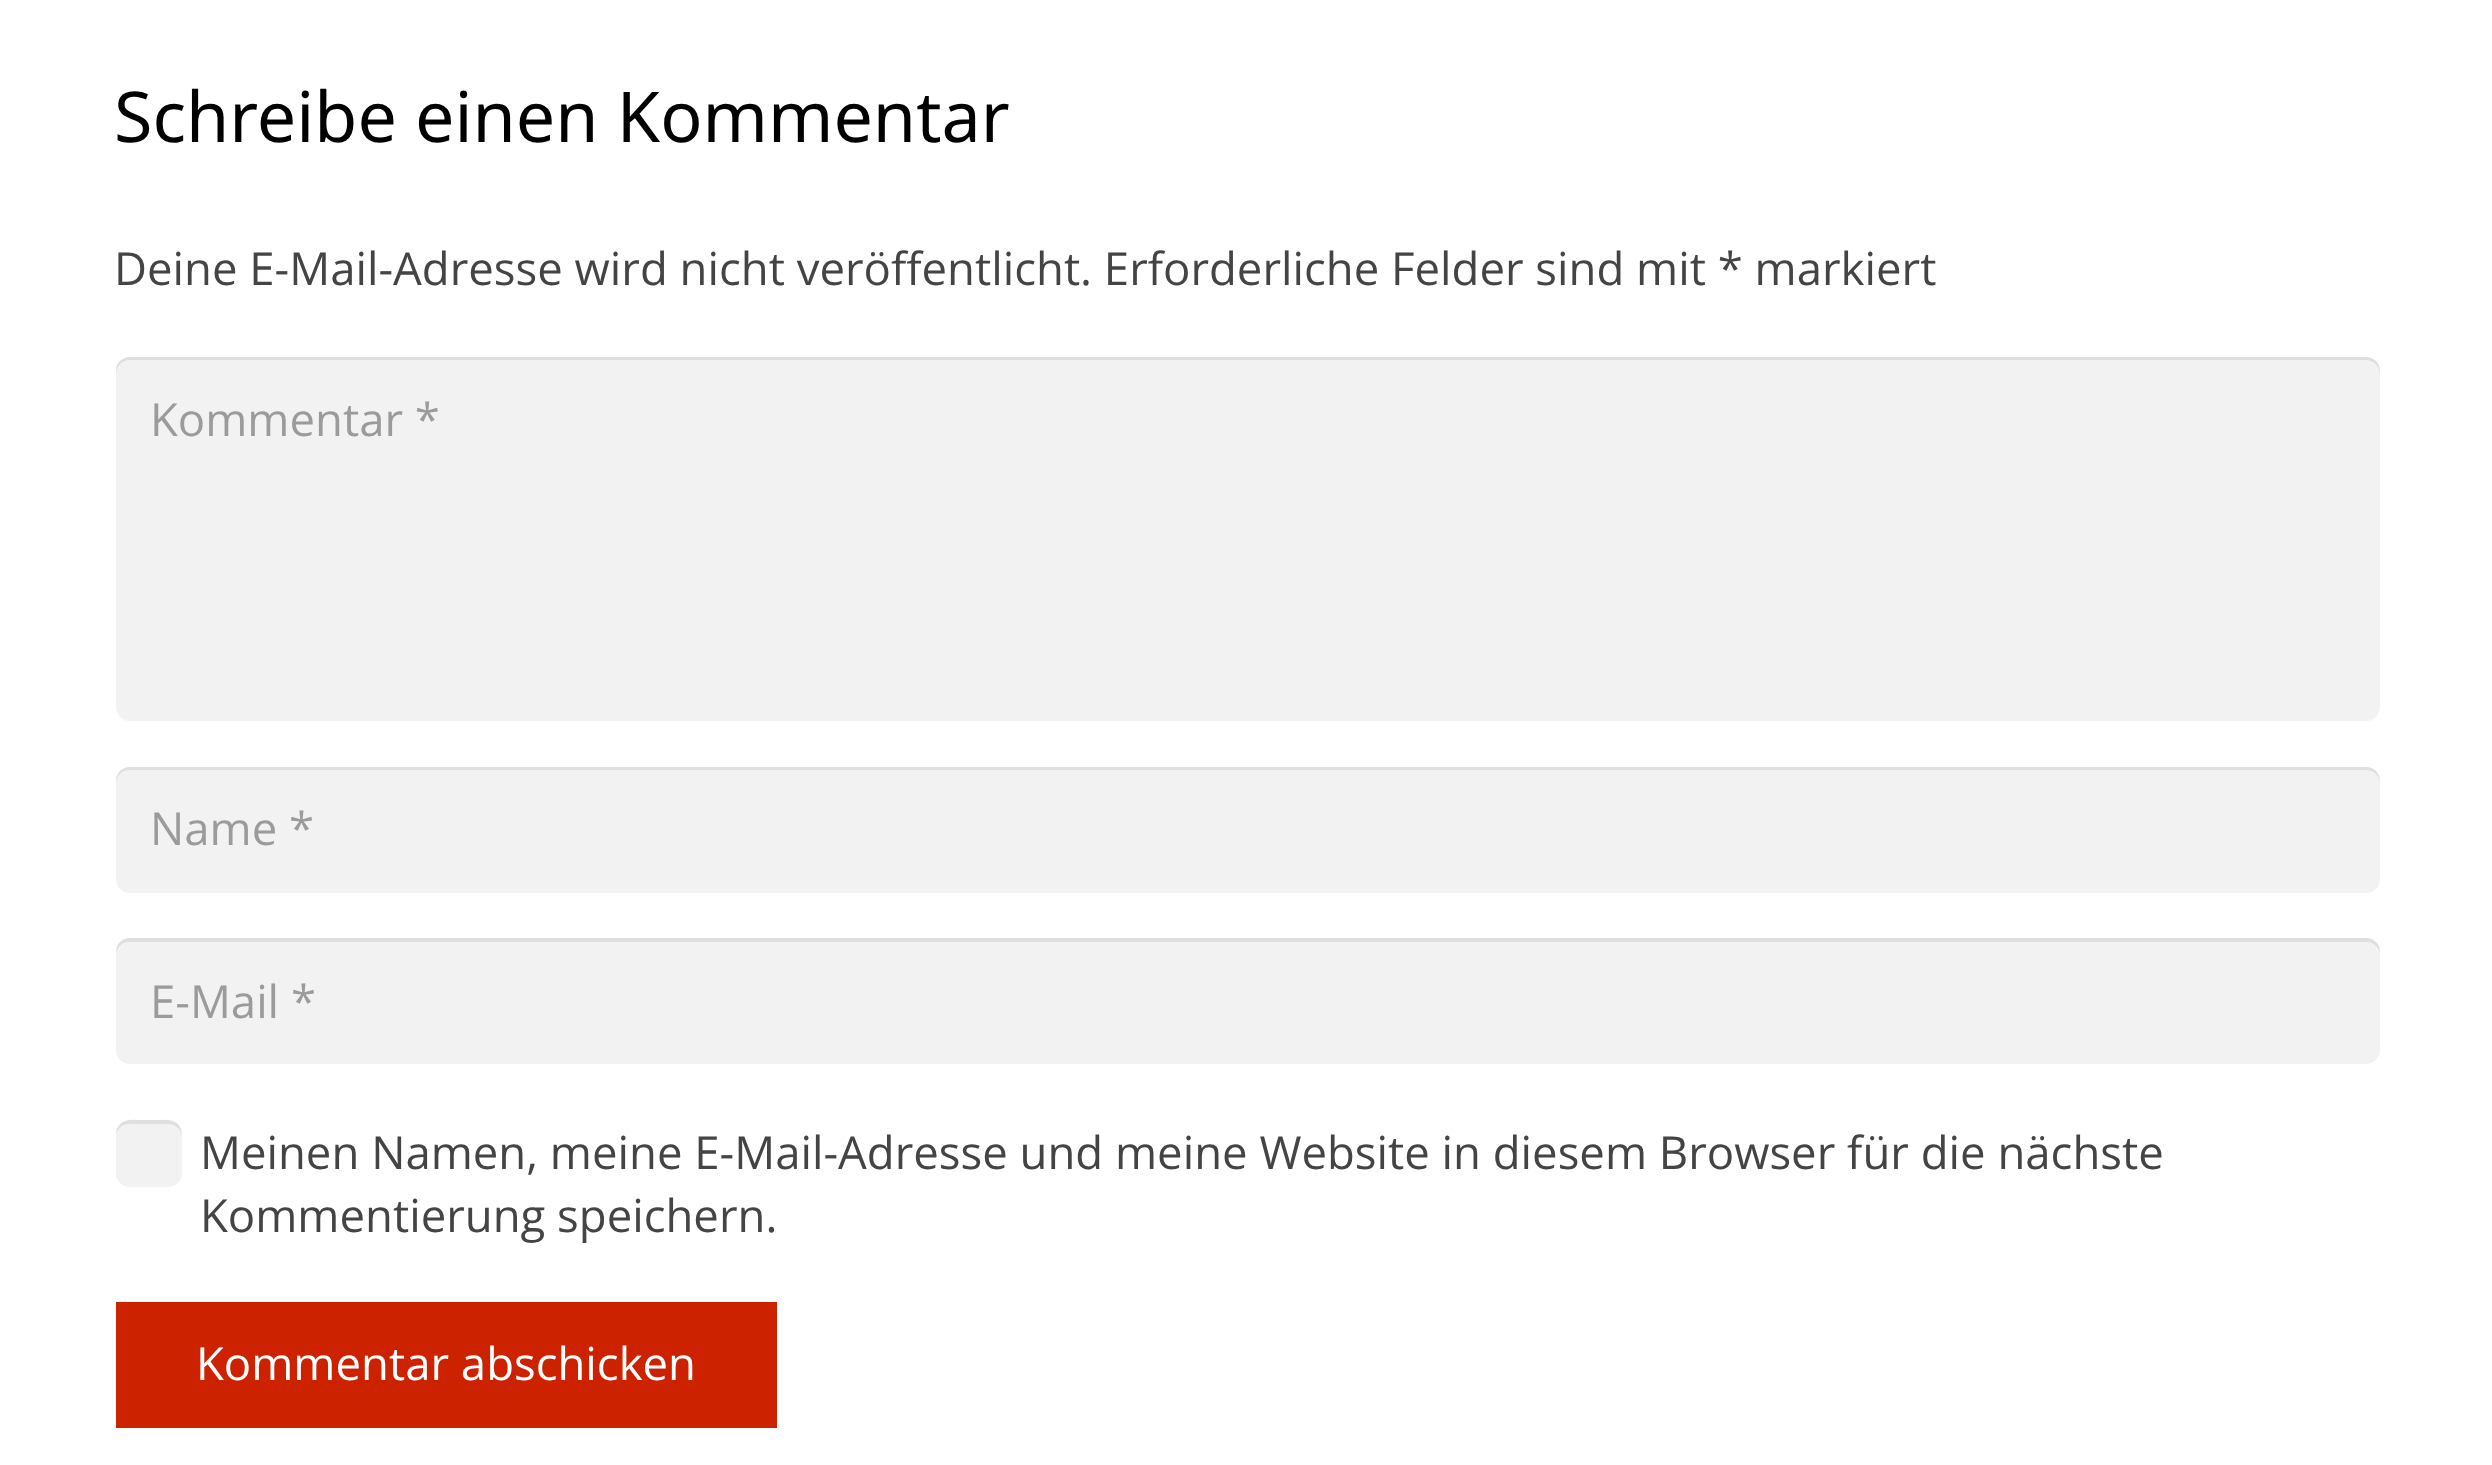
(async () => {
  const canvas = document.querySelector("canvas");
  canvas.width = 2492;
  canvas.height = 1465;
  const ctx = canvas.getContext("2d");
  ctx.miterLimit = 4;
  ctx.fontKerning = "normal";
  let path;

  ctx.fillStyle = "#ffffff";
  ctx.fillRect(0, 0, 2492, 1465);
  ctx.fillStyle = "#f2f2f2";
  ctx.beginPath();
  ctx.roundRect(116, 357, 2264, 364, 14);
  ctx.fill();
  ctx.fillStyle = "rgba(0, 0, 0, 0.08)";
  path = new Path2D("M129 360H2366C2374 360 2380 367 2380 374V371C2380 363 2374 357 2366 357H130C122 357 116 363 116 371V374C116 367 122 360 129 360Z");
  ctx.fill(path);
  ctx.fillStyle = "#f2f2f2";
  ctx.beginPath();
  ctx.roundRect(116, 767, 2264, 126, 14);
  ctx.fill();
  ctx.fillStyle = "rgba(0, 0, 0, 0.08)";
  path = new Path2D("M129 770H2366C2374 770 2380 776 2380 784V781C2380 773 2374 767 2366 767H130C122 767 116 773 116 781V784C116 776 122 770 129 770Z");
  ctx.fill(path);
  ctx.fillStyle = "#f2f2f2";
  ctx.beginPath();
  ctx.roundRect(116, 938, 2264, 126, 14);
  ctx.fill();
  ctx.fillStyle = "rgba(0, 0, 0, 0.08)";
  path = new Path2D("M129 942H2366C2374 942 2380 948 2380 955V952C2380 944 2374 938 2366 938H130C122 938 116 944 116 952V955C116 948 122 942 129 942Z");
  ctx.fill(path);
  ctx.fillStyle = "#f2f2f2";
  ctx.beginPath();
  ctx.roundRect(116, 1120, 66, 67, 14);
  ctx.fill();
  ctx.fillStyle = "rgba(0, 0, 0, 0.08)";
  path = new Path2D("M129 1124H168C176 1124 182 1130 182 1137C182 1116 164 1120 149 1120C134 1120 116 1116 116 1137C116 1130 122 1124 129 1124Z");
  ctx.fill(path);
  ctx.fillStyle = "#cc2200";
  ctx.fillRect(116, 1302, 661, 126);
  ctx.font = "70px Noto Sans";
  ctx.fillStyle = "#000000";
  ctx.fillText("Schreibe einen Kommentar", 114, 142);
  ctx.font = "45.5px Open Sans";
  ctx.fillStyle = "#444444";
  ctx.fillText("Deine E-Mail-Adresse wird nicht veröffentlicht. Erforderliche Felder sind mit * markiert", 114, 285);
  ctx.fillStyle = "#9b9b9b";
  for (const [text, x, y] of [
    ["Kommentar *", 150, 436],
    ["Name *", 150, 845],
    ["E-Mail *", 150, 1018],
  ]) {
    ctx.fillText(text, x, y);
  }
  ctx.fillStyle = "#444444";
  ctx.fillText("Meinen Namen, meine E-Mail-Adresse und meine Website in diesem Browser für die nächste", 200, 1169);
  ctx.fillText("Kommentierung speichern.", 200, 1232);
  ctx.fillStyle = "#ffffff";
  ctx.fillText("Kommentar abschicken", 196, 1380);
})();
